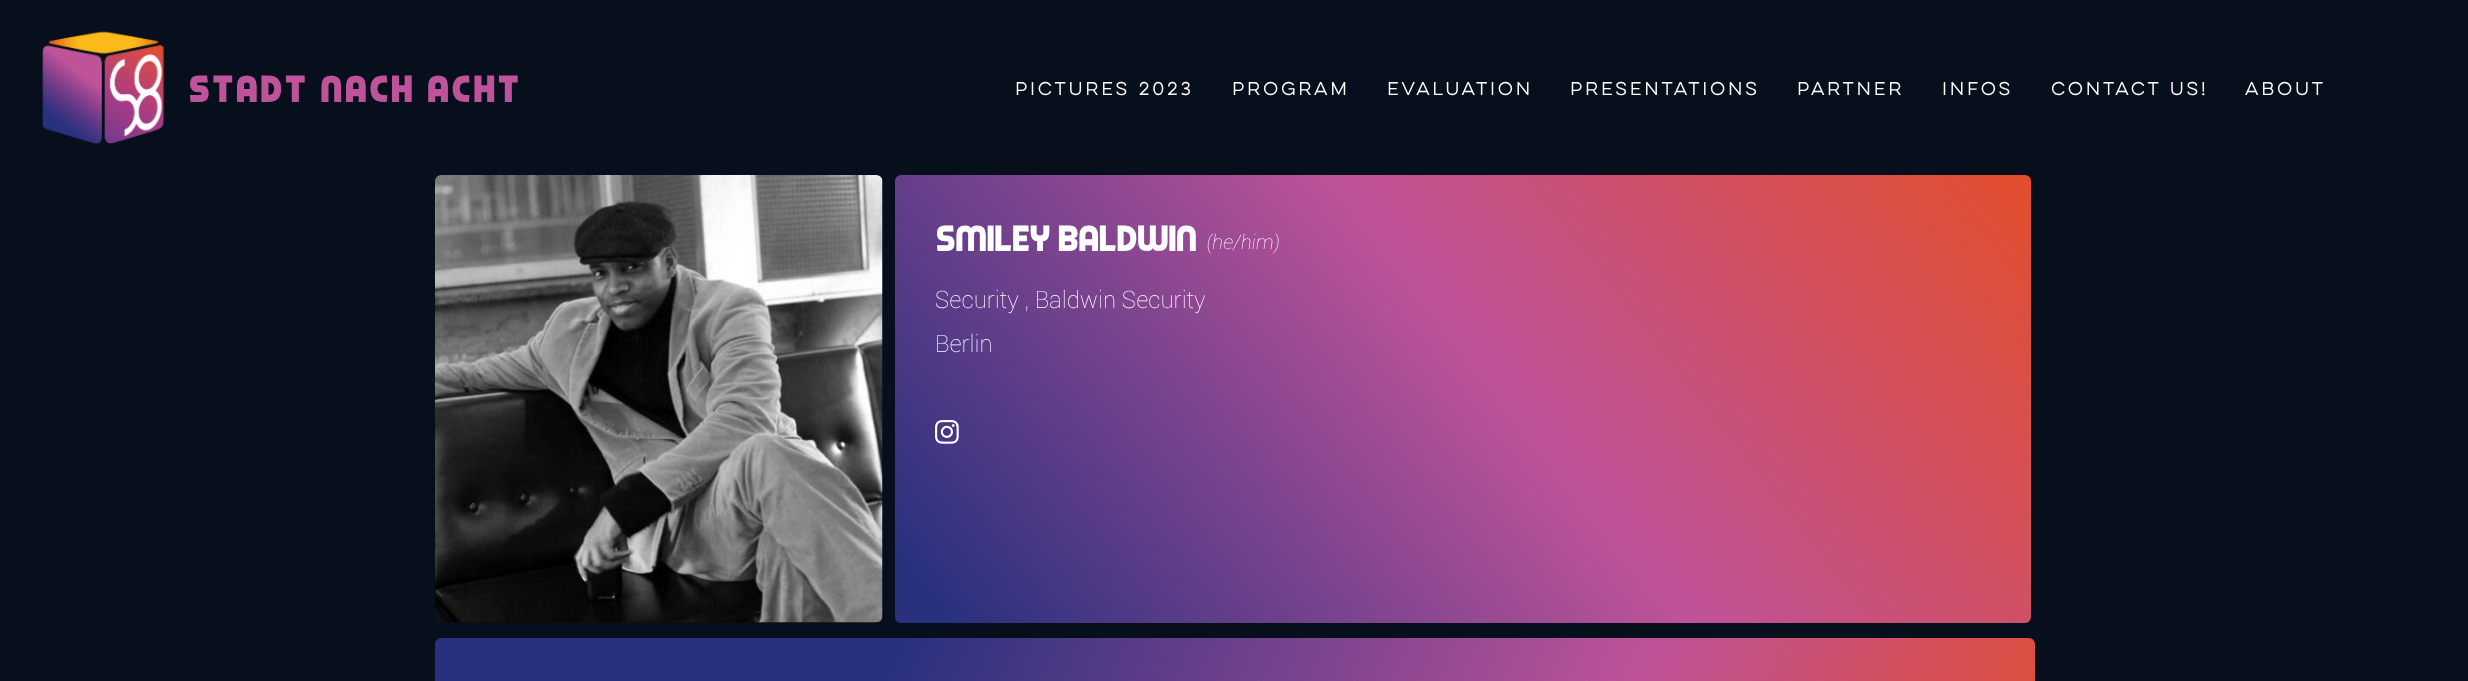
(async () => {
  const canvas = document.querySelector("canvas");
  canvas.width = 2468;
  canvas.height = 681;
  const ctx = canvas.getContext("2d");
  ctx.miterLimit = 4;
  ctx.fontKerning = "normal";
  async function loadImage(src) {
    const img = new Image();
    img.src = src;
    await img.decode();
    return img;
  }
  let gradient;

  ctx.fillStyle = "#060f1b";
  ctx.fillRect(0, 0, 2468, 681);
  ctx.drawImage(await loadImage("img/1.png"), 42, 31, 123, 113);
  ctx.drawImage(await loadImage("img/2.png"), 435, 175, 448, 448);
  gradient = ctx.createLinearGradient(1002, 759, 1924, 38);
  gradient.addColorStop(0.04, "#29317f");
  gradient.addColorStop(0.53, "#be539a");
  gradient.addColorStop(0.99, "#e24e2f");
  ctx.fillStyle = gradient;
  ctx.beginPath();
  ctx.roundRect(895, 175, 1136, 448, 6);
  ctx.fill();
  ctx.drawImage(await loadImage("img/3.png"), 935, 420, 24, 24);
  gradient = ctx.createLinearGradient(518, 441, 1952, 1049);
  gradient.addColorStop(0.28, "#29317f");
  gradient.addColorStop(0.72, "#be539a");
  gradient.addColorStop(1, "#e24e2f");
  ctx.fillStyle = gradient;
  ctx.beginPath();
  ctx.roundRect(435, 638, 1600, 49, 6);
  ctx.fill();
  ctx.letterSpacing = "4px";
  ctx.font = "bold 40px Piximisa";
  ctx.fillStyle = "#bf539b";
  ctx.fillText("STADT NACH ACHT", 188, 102);
  ctx.letterSpacing = "0px";
  ctx.font = "bold 16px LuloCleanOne";
  ctx.fillStyle = "#ffffff";
  for (const [text, x, y] of [
    ["PICTURES 2023", 1015, 95],
    ["PROGRAM", 1232, 95],
    ["EVALUATION", 1387, 95],
    ["PRESENTATIONS", 1570, 95],
    ["PARTNER", 1797, 95],
    ["INFOS", 1942, 95],
    ["CONTACT US!", 2051, 95],
    ["ABOUT", 2245, 95],
  ]) {
    ctx.fillText(text, x, y);
  }
  ctx.font = "40px Piximisa";
  ctx.fillText("Smiley Baldwin", 935, 251);
  ctx.font = "italic 100 20px Roboto";
  ctx.fillText("(he/him)", 1206, 249);
  ctx.font = "100 24px Roboto";
  ctx.fillText("Security , Baldwin Security", 935, 308);
  ctx.fillText("Berlin", 935, 352);
})();
